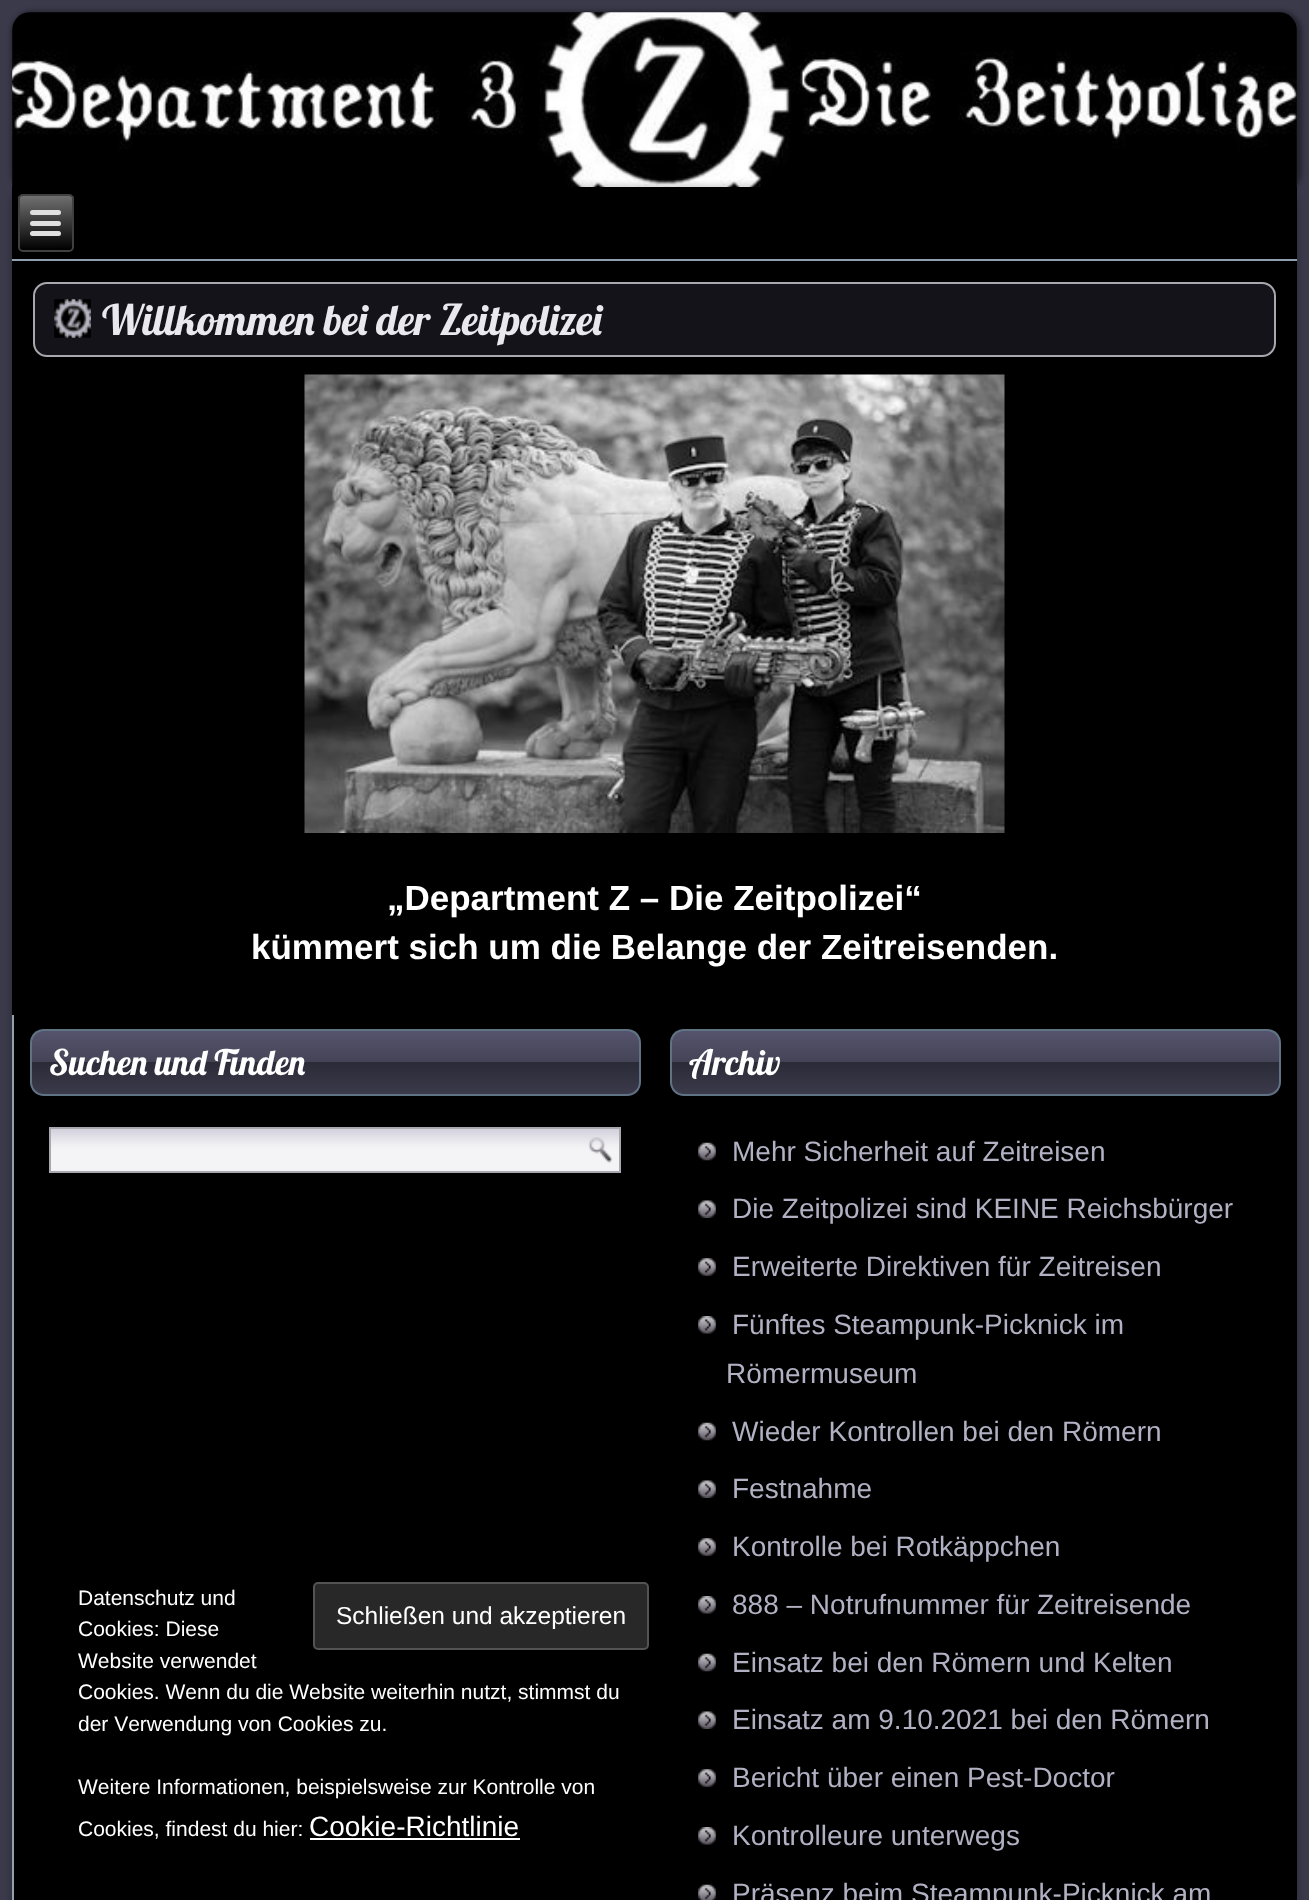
(async () => {
  const canvas = document.querySelector("canvas");
  canvas.width = 1309;
  canvas.height = 1900;
  const ctx = canvas.getContext("2d");
  ctx.miterLimit = 4;
  ctx.fontKerning = "none";
  async function loadImage(src) {
    const img = new Image();
    img.src = src;
    await img.decode();
    return img;
  }
  let gradient;

  ctx.fillStyle = "#3b3a4b";
  ctx.fillRect(0, 0, 1309, 1900);
  ctx.fillStyle = "rgba(0, 0, 0, 0.4)";
  ctx.filter = "blur(2.5px)";
  ctx.beginPath();
  ctx.roundRect(11, 11, 1291, 182, 21);
  ctx.fill();
  ctx.filter = "none";
  ctx.drawImage(await loadImage("img/1.png"), 12, 12, 1285, 175);
  ctx.fillStyle = "rgba(0, 0, 0, 0.15)";
  ctx.filter = "blur(2.5px)";
  ctx.beginPath();
  ctx.roundRect(9, 184, 1291, 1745, 21);
  ctx.fill();
  ctx.filter = "none";
  ctx.fillStyle = "#000000";
  ctx.fillRect(12, 187, 1285, 1713);
  ctx.fillStyle = "#92a1b0";
  ctx.fillRect(12, 259, 1285, 2);
  ctx.save();
  ctx.beginPath();
  ctx.roundRect(18, 194, 56, 58, 5);
  ctx.clip();
  gradient = ctx.createLinearGradient(45, 196, 46, 250);
  gradient.addColorStop(0, "#707070");
  gradient.addColorStop(1, "#000000");
  ctx.fillStyle = gradient;
  ctx.fillRect(18, 196, 56, 54);
  ctx.restore();
  ctx.beginPath();
  ctx.roundRect(19, 195, 54, 56, 4);
  ctx.strokeStyle = "#404040";
  ctx.lineWidth = 2;
  ctx.stroke();
  ctx.fillStyle = "#e0e0e0";
  ctx.beginPath();
  ctx.roundRect(30, 210, 31, 5, 2.5);
  ctx.fill();
  ctx.beginPath();
  ctx.roundRect(30, 221, 31, 5, 2.5);
  ctx.fill();
  ctx.beginPath();
  ctx.roundRect(30, 231, 31, 5, 2.5);
  ctx.fill();
  ctx.fillStyle = "#131319";
  ctx.beginPath();
  ctx.roundRect(34, 283, 1241, 73, 13);
  ctx.fill();
  ctx.strokeStyle = "#aba7ae";
  ctx.stroke();
  ctx.drawImage(await loadImage("img/2.png"), 54, 299, 37, 39);
  ctx.drawImage(await loadImage("img/3.png"), 304, 374, 701, 459);
  ctx.fillStyle = "#92a1b0";
  ctx.fillRect(12, 1015, 2, 885);
  ctx.save();
  ctx.beginPath();
  ctx.roundRect(30, 1029, 611, 67, 14);
  ctx.clip();
  gradient = ctx.createLinearGradient(335, 1031, 335, 1094);
  gradient.addColorStop(0, "#56546d");
  gradient.addColorStop(0.5, "#444356");
  gradient.addColorStop(0.5, "#2b2a37");
  gradient.addColorStop(1, "#3b3a4b");
  ctx.fillStyle = gradient;
  ctx.fillRect(32, 1031, 607, 63);
  ctx.restore();
  ctx.beginPath();
  ctx.roundRect(31, 1030, 609, 65, 13);
  ctx.strokeStyle = "#607385";
  ctx.stroke();
  gradient = ctx.createLinearGradient(335, 1129, 335, 1171);
  gradient.addColorStop(0, "#d2d1dc");
  gradient.addColorStop(0.4, "#f1f1f4");
  gradient.addColorStop(0.5, "#f4f3f6");
  gradient.addColorStop(1, "#f4f3f6");
  ctx.fillStyle = gradient;
  ctx.fillRect(51, 1129, 568, 42);
  ctx.strokeStyle = "#aba7ae";
  ctx.strokeRect(50, 1128, 570, 44);
  ctx.drawImage(await loadImage("img/4.png"), 588, 1137, 25, 26);
  ctx.save();
  ctx.beginPath();
  ctx.roundRect(670, 1029, 611, 67, 14);
  ctx.clip();
  gradient = ctx.createLinearGradient(976, 1031, 976, 1094);
  gradient.addColorStop(0, "#56546d");
  gradient.addColorStop(0.5, "#444356");
  gradient.addColorStop(0.5, "#2b2a37");
  gradient.addColorStop(1, "#3b3a4b");
  ctx.fillStyle = gradient;
  ctx.fillRect(672, 1031, 607, 63);
  ctx.restore();
  ctx.beginPath();
  ctx.roundRect(671, 1030, 609, 65, 13);
  ctx.strokeStyle = "#607385";
  ctx.stroke();
  ctx.drawImage(await loadImage("img/5.png"), 698, 1142, 18, 19);
  ctx.drawImage(await loadImage("img/6.png"), 698, 1200, 18, 18);
  ctx.drawImage(await loadImage("img/7.png"), 698, 1258, 18, 18);
  ctx.drawImage(await loadImage("img/8.png"), 698, 1316, 18, 18);
  ctx.drawImage(await loadImage("img/5.png"), 698, 1422, 18, 19);
  ctx.drawImage(await loadImage("img/6.png"), 698, 1480, 18, 18);
  ctx.drawImage(await loadImage("img/7.png"), 698, 1538, 18, 18);
  ctx.drawImage(await loadImage("img/8.png"), 698, 1596, 18, 18);
  ctx.drawImage(await loadImage("img/5.png"), 698, 1653, 18, 19);
  ctx.drawImage(await loadImage("img/6.png"), 698, 1711, 18, 18);
  ctx.drawImage(await loadImage("img/7.png"), 698, 1769, 18, 18);
  ctx.drawImage(await loadImage("img/9.png"), 698, 1827, 18, 18);
  ctx.drawImage(await loadImage("img/10.png"), 698, 1884, 18, 16);
  ctx.fillStyle = "#282828";
  ctx.beginPath();
  ctx.roundRect(314, 1583, 334, 66, 4);
  ctx.fill();
  ctx.strokeStyle = "#535353";
  ctx.stroke();
  ctx.fillStyle = "#ffffff";
  ctx.fillRect(310, 1838, 210, 2);
  ctx.font = "42px Lobster";
  ctx.fillStyle = "#e8e8ed";
  ctx.fillText("Willkommen bei der Zeitpolizei", 102, 335);
  ctx.font = "bold 35px Liberation Sans";
  ctx.fillStyle = "#ffffff";
  ctx.fillText("„Department Z – Die Zeitpolizei“", 387, 910);
  ctx.fillText("kümmert sich um die Belange der Zeitreisenden.", 251, 959);
  ctx.font = "35px Lobster";
  ctx.fillText("Suchen und Finden", 49, 1075);
  ctx.fillText("Archiv", 689, 1075);
  ctx.font = "28px Liberation Sans";
  ctx.fillStyle = "#b2b1c3";
  for (const [text, x, y] of [
    ["Mehr Sicherheit auf Zeitreisen", 732, 1161],
    ["Die Zeitpolizei sind KEINE Reichsbürger", 732, 1218],
    ["Erweiterte Direktiven für Zeitreisen", 732, 1276],
    ["Fünftes Steampunk-Picknick im", 732, 1334],
    ["Römermuseum", 726, 1383],
    ["Wieder Kontrollen bei den Römern", 732, 1441],
    ["Festnahme", 732, 1498],
    ["Kontrolle bei Rotkäppchen", 732, 1556],
    ["888 – Notrufnummer für Zeitreisende", 732, 1614],
    ["Einsatz bei den Römern und Kelten", 732, 1672],
    ["Einsatz am 9.10.2021 bei den Römern", 732, 1729],
    ["Bericht über einen Pest-Doctor", 732, 1787],
    ["Kontrolleure unterwegs", 732, 1845],
    ["Präsenz beim Steampunk-Picknick am", 732, 1903],
  ]) {
    ctx.fillText(text, x, y);
  }
  ctx.font = "21px Liberation Sans";
  ctx.fillStyle = "#ffffff";
  ctx.fillText("Datenschutz und", 78, 1605);
  ctx.fillText("Cookies: Diese", 78, 1636);
  ctx.font = "24.5px Liberation Sans";
  ctx.fillText("Schließen und akzeptieren", 336, 1624);
  ctx.font = "21px Liberation Sans";
  for (const [text, x, y] of [
    ["Website verwendet", 78, 1668],
    ["Cookies. Wenn du die Website weiterhin nutzt, stimmst du", 78, 1699],
    ["der Verwendung von Cookies zu.", 78, 1731],
    ["Weitere Informationen, beispielsweise zur Kontrolle von", 78, 1794],
    ["Cookies, findest du hier:", 78, 1836],
  ]) {
    ctx.fillText(text, x, y);
  }
  ctx.font = "28px Liberation Sans";
  ctx.fillText("Cookie-Richtlinie", 309, 1836);
})();
